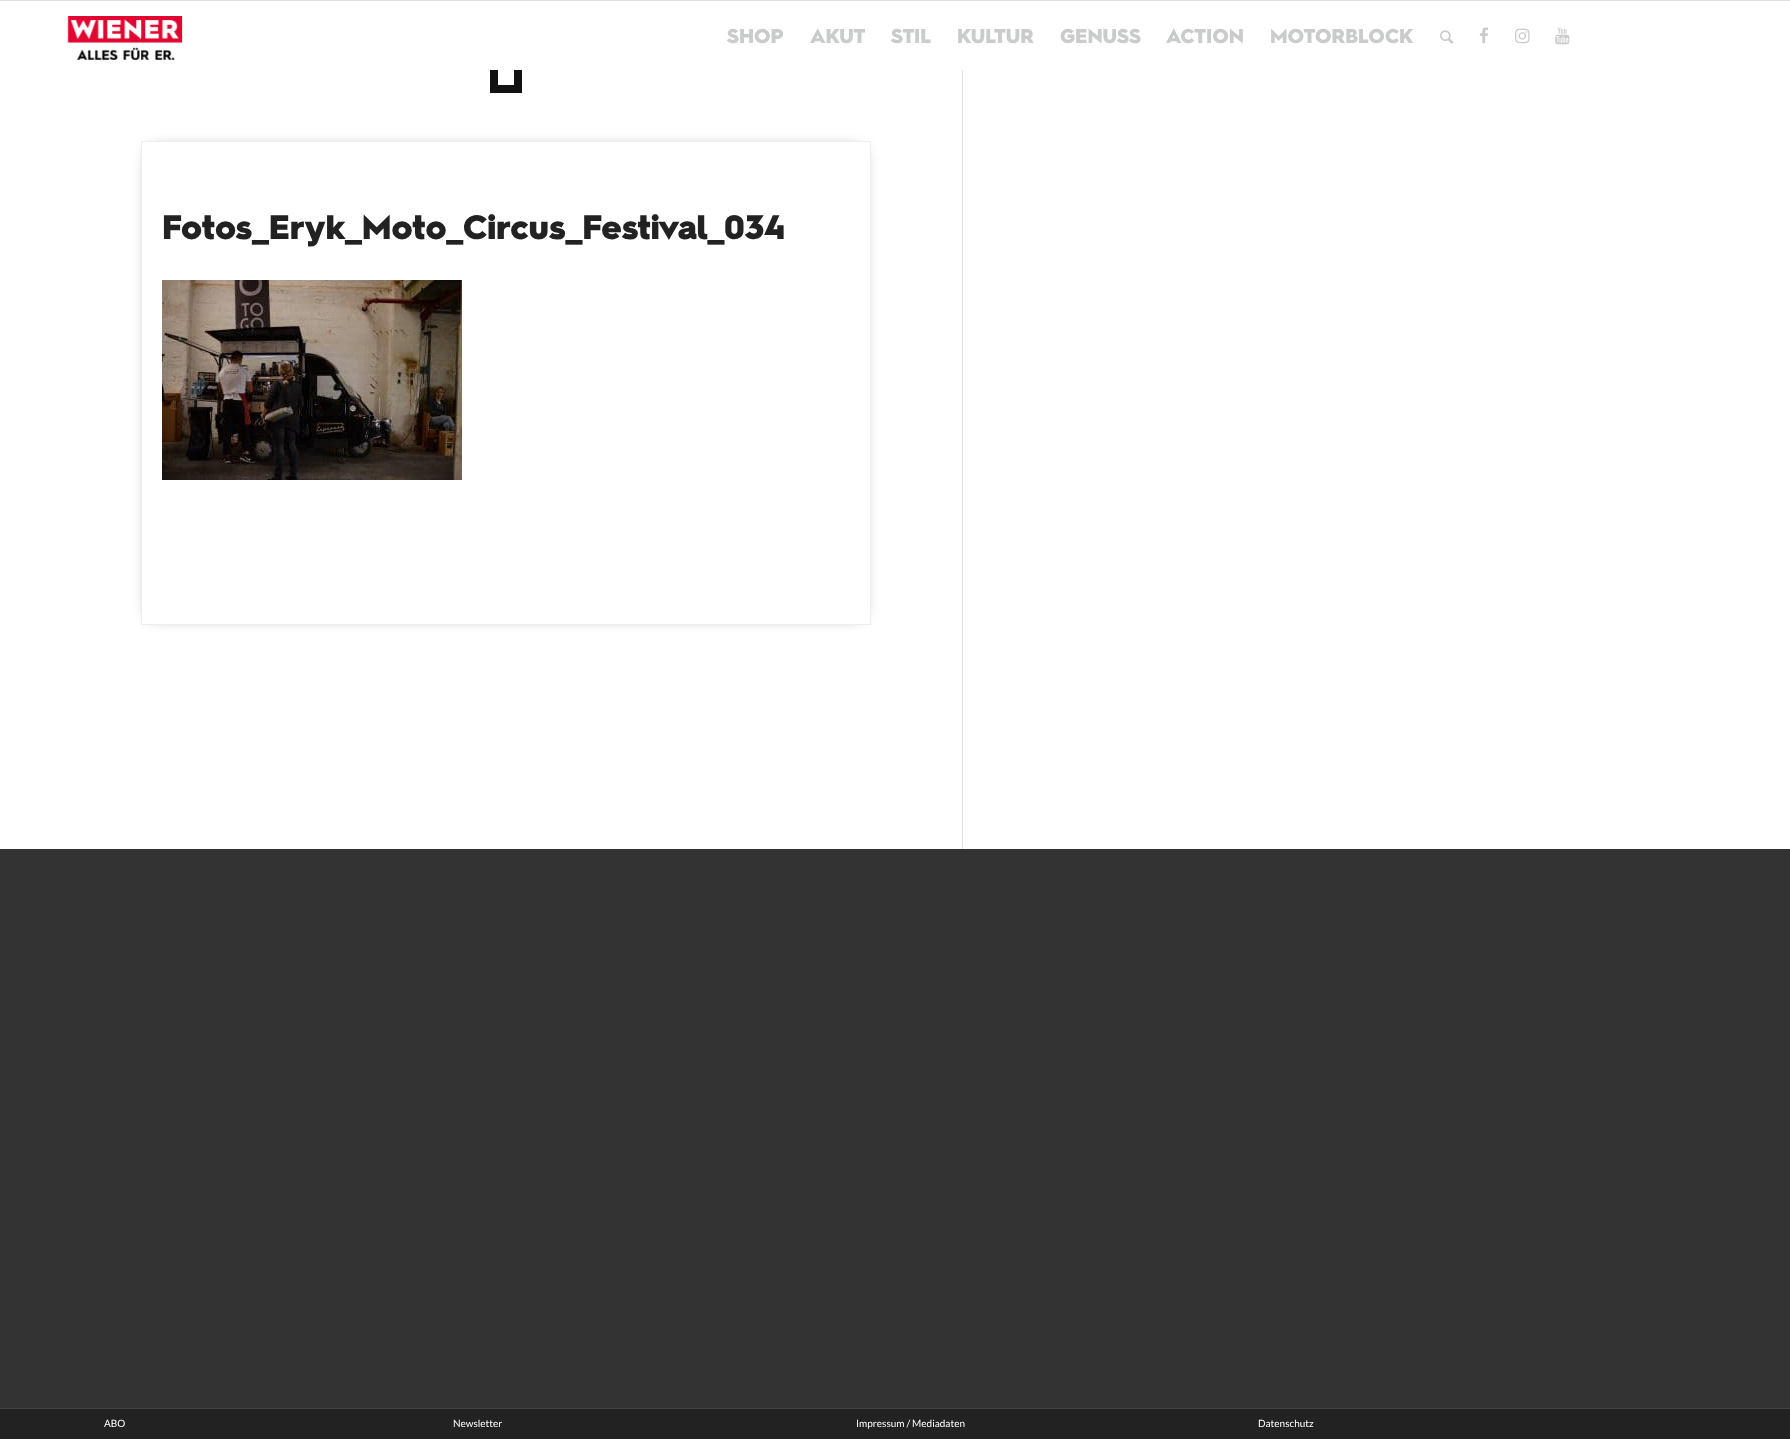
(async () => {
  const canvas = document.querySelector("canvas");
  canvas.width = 1790;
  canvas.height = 1439;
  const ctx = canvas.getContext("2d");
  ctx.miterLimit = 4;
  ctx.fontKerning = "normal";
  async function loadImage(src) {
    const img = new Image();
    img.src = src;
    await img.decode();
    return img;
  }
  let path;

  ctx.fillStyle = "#333333";
  ctx.fillRect(0, 0, 1790, 1439);
  ctx.fillStyle = "#ffffff";
  ctx.fillRect(0, 70, 1790, 779);
  ctx.strokeStyle = "#121212";
  ctx.lineWidth = 8;
  ctx.strokeRect(494, 65, 24, 24);
  ctx.fillRect(0, 1, 1790, 69);
  ctx.fillStyle = "#e1e1e1";
  ctx.fillRect(0, 0, 1790, 1);
  ctx.drawImage(await loadImage("img/1.png"), 67, 16, 116, 44);
  ctx.drawImage(await loadImage("img/2.png"), 1440, 30, 14, 14);
  ctx.drawImage(await loadImage("img/3.png"), 1479, 27, 10, 17);
  ctx.drawImage(await loadImage("img/4.png"), 1515, 28, 15, 16);
  ctx.drawImage(await loadImage("img/5.png"), 1555, 27, 15, 18);
  ctx.save();
  path = new Path2D("M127 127H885V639H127ZM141 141H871V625H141Z");
  ctx.clip(path, "evenodd");
  ctx.fillStyle = "#333333";
  ctx.filter = "blur(7.5px)";
  ctx.beginPath();
  ctx.rect(151, 151, 710, 464);
  ctx.fill();
  ctx.filter = "none";
  ctx.restore();
  ctx.strokeStyle = "#eeeeee";
  ctx.lineWidth = 1;
  ctx.strokeRect(141.5, 141.5, 729, 483);
  ctx.drawImage(await loadImage("img/6.png"), 162, 280, 300, 200);
  for (const [x, y, w, h, color] of [
    [962, 70, 1, 779, "#e1e1e1"],
    [0, 1409, 1790, 30, "#222222"],
    [0, 1408, 1790, 1, "#444444"],
  ]) {
    ctx.fillStyle = color;
    ctx.fillRect(x, y, w, h);
  }
  ctx.font = "900 20px 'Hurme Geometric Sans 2'";
  ctx.fillStyle = "#c9cccb";
  for (const [text, x, y] of [
    ["SHOP", 727, 43],
    ["AKUT", 810, 43],
    ["STIL", 891, 43],
    ["KULTUR", 957, 43],
    ["GENUSS", 1060, 43],
    ["ACTION", 1166, 43],
    ["MOTORBLOCK", 1270, 43],
  ]) {
    ctx.fillText(text, x, y);
  }
  ctx.font = "900 34px 'Hurme Geometric Sans 2'";
  ctx.fillStyle = "#222222";
  ctx.fillText("Fotos_Eryk_Moto_Circus_Festival_034", 162, 239);
  ctx.font = "10px Lato";
  ctx.fillStyle = "#ffffff";
  for (const [text, x, y] of [
    ["ABO", 104, 1427],
    ["Newsletter", 453, 1427],
    ["Impressum / Mediadaten", 856, 1427],
    ["Datenschutz", 1258, 1427],
  ]) {
    ctx.fillText(text, x, y);
  }
})();
